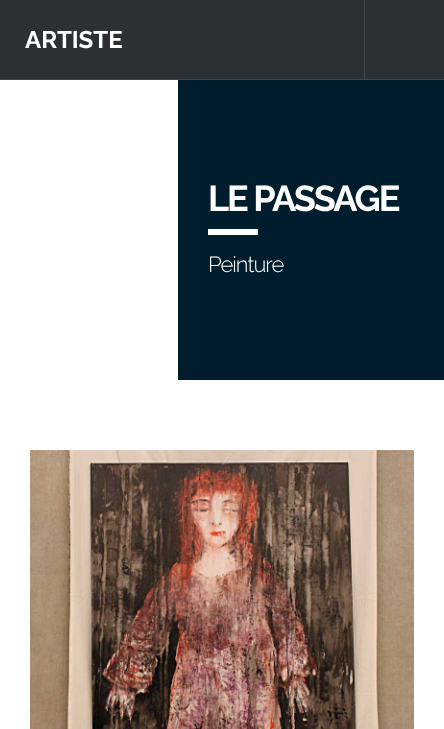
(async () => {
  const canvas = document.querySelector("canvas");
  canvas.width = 444;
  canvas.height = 729;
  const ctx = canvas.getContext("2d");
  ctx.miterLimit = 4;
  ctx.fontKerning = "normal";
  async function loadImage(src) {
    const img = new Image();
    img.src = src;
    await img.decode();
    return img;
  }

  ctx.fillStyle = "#ffffff";
  ctx.fillRect(0, 0, 444, 729);
  for (const [x, y, w, h, color] of [
    [0, 0, 444, 79, "#2d3032"],
    [0, 79, 444, 1, "#444649"],
    [364, 0, 1, 80, "#444649"],
    [178, 80, 266, 300, "#001d2d"],
    [208, 229, 50, 6, "#ffffff"],
  ]) {
    ctx.fillStyle = color;
    ctx.fillRect(x, y, w, h);
  }
  ctx.drawImage(await loadImage("img/1.png"), 30, 450, 384, 279);
  ctx.font = "bold 24px Raleway";
  ctx.fillText("ARTISTE", 25, 48);
  ctx.letterSpacing = "-2px";
  ctx.font = "bold 36px Raleway";
  ctx.fillText("LE PASSAGE", 208, 211);
  ctx.letterSpacing = "-1px";
  ctx.font = "300 22px Raleway";
  ctx.fillText("Peinture", 208, 272);
})();
